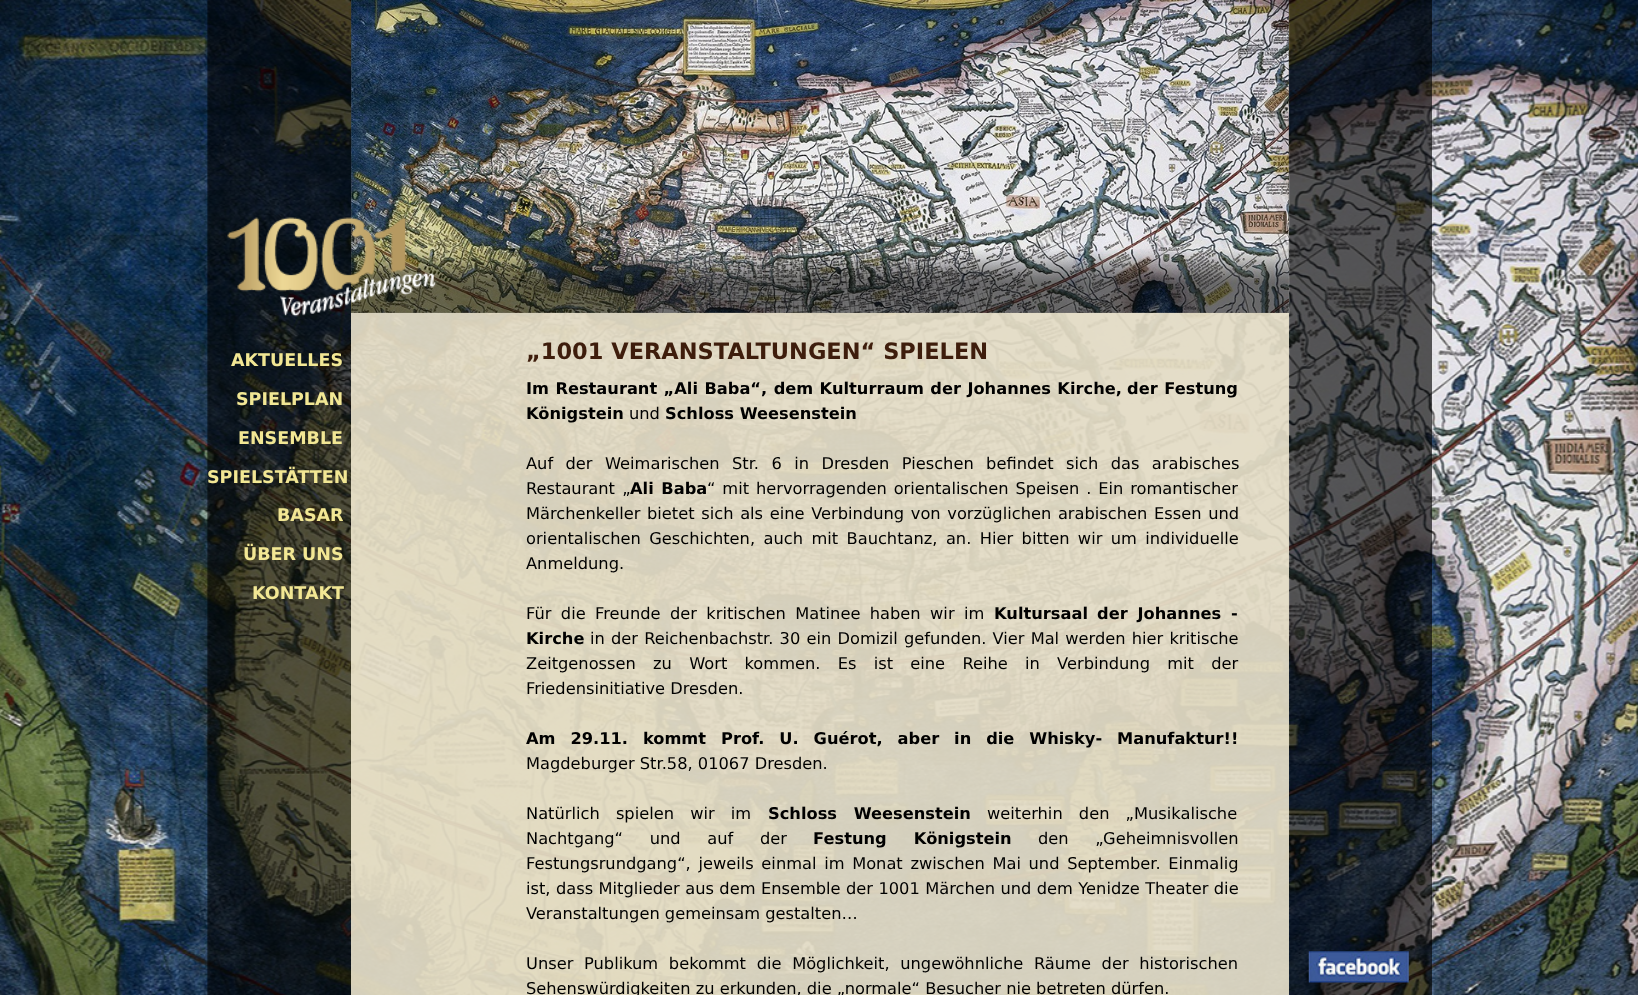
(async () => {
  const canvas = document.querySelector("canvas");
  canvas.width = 1638;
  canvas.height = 995;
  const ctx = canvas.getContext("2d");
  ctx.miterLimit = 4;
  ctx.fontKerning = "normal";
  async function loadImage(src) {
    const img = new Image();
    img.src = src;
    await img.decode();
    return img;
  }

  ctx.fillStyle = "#ffffff";
  ctx.fillRect(0, 0, 1638, 995);
  ctx.drawImage(await loadImage("img/1.png"), 0, 0, 1638, 995);
  ctx.drawImage(await loadImage("img/2.png"), 1288, 0, 144, 995);
  ctx.fillStyle = "rgba(227, 219, 197, 0.93)";
  ctx.fillRect(351, 0, 938, 995);
  ctx.drawImage(await loadImage("img/3.png"), 1308, 951, 101, 32);
  ctx.drawImage(await loadImage("img/4.png"), 207, 0, 144, 995);
  ctx.fillStyle = "rgba(0, 0, 0, 0.64)";
  ctx.fillRect(351, 0, 938, 313);
  ctx.drawImage(await loadImage("img/6.png"), 351, 0, 938, 313);
  ctx.drawImage(await loadImage("img/7.png"), 351, 249, 938, 64);
  ctx.drawImage(await loadImage("img/5.png"), 227, 217, 210, 100);
  ctx.font = "bold 17.5px DejaVu Sans";
  ctx.fillStyle = "#f2e794";
  for (const [text, x, y] of [
    ["AKTUELLES", 231, 366],
    ["SPIELPLAN", 236, 405],
    ["ENSEMBLE", 238, 444],
    ["SPIELSTÄTTEN", 207, 483],
    ["BASAR", 277, 521],
    ["ÜBER UNS", 243, 560],
    ["KONTAKT", 252, 599],
  ]) {
    ctx.fillText(text, x, y);
  }
  ctx.font = "bold 22.5px DejaVu Sans";
  ctx.fillStyle = "#3e1d0c";
  ctx.fillText("„1001 VERANSTALTUNGEN“ SPIELEN", 526, 359);
  ctx.wordSpacing = "0.75px";
  ctx.font = "bold 16.25px DejaVu Sans";
  ctx.fillStyle = "#000000";
  ctx.fillText("Im Restaurant „Ali Baba“, dem Kulturraum der Johannes Kirche,", 526, 394);
  ctx.wordSpacing = "1px";
  ctx.fillText("der Festung", 1127, 394);
  ctx.wordSpacing = "0px";
  ctx.fillText("Königstein", 526, 419);
  ctx.font = "16.25px DejaVu Sans";
  ctx.fillText("und", 629, 419);
  ctx.font = "bold 16.25px DejaVu Sans";
  ctx.fillText("Schloss Weesenstein", 665, 419);
  ctx.wordSpacing = "7.25px";
  ctx.font = "16.25px DejaVu Sans";
  ctx.fillText("Auf der Weimarischen Str. 6 in Dresden Pieschen befindet sich das arabisches", 526, 469);
  ctx.wordSpacing = "2px";
  ctx.fillText("Restaurant „", 526, 494);
  ctx.font = "bold 16.25px DejaVu Sans";
  ctx.fillText("Ali Baba", 630, 494);
  ctx.wordSpacing = "1.75px";
  ctx.font = "16.25px DejaVu Sans";
  ctx.fillText("“ mit hervorragenden orientalischen Speisen . Ein romantischer", 707, 494);
  ctx.wordSpacing = "1.5px";
  ctx.fillText("Märchenkeller bietet sich als eine Verbindung von vorzüglichen arabischen Essen und", 526, 519);
  ctx.wordSpacing = "3.25px";
  ctx.fillText("orientalischen Geschichten, auch mit Bauchtanz, an. Hier bitten wir um individuelle", 526, 544);
  ctx.wordSpacing = "0px";
  ctx.fillText("Anmeldung.", 526, 569);
  ctx.wordSpacing = "4.25px";
  ctx.fillText("Für die Freunde der kritischen Matinee haben wir im", 526, 619);
  ctx.wordSpacing = "0px";
  ctx.font = "bold 16.25px DejaVu Sans";
  ctx.fillText("Kultursaal", 994, 619);
  ctx.wordSpacing = "4.25px";
  ctx.fillText("der Johannes -", 1097, 619);
  ctx.wordSpacing = "0px";
  ctx.fillText("Kirche", 526, 644);
  ctx.wordSpacing = "1px";
  ctx.font = "16.25px DejaVu Sans";
  ctx.fillText("in der Reichenbachstr. 30 ein Domizil gefunden. Vier Mal werden hier kritische", 590, 644);
  ctx.wordSpacing = "12.1px";
  ctx.fillText("Zeitgenossen zu Wort kommen. Es ist eine Reihe in Verbindung mit der", 526, 669);
  ctx.wordSpacing = "0px";
  ctx.fillText("Friedensinitiative Dresden.", 526, 694);
  ctx.wordSpacing = "9.25px";
  ctx.font = "bold 16.25px DejaVu Sans";
  ctx.fillText("Am 29.11. kommt Prof. U. Guérot, aber in die Whisky- Manufaktur!!", 526, 744);
  ctx.wordSpacing = "0px";
  ctx.font = "16.25px DejaVu Sans";
  ctx.fillText("Magdeburger Str.58, 01067 Dresden.", 526, 769);
  ctx.wordSpacing = "11px";
  ctx.fillText("Natürlich spielen wir im", 526, 819);
  ctx.font = "bold 16.25px DejaVu Sans";
  ctx.fillText("Schloss Weesenstein", 768, 819);
  ctx.font = "16.25px DejaVu Sans";
  ctx.fillText("weiterhin den „Musikalische", 987, 819);
  ctx.wordSpacing = "21.5px";
  ctx.fillText("Nachtgang“ und auf der", 526, 844);
  ctx.font = "bold 16.25px DejaVu Sans";
  ctx.fillText("Festung Königstein", 813, 844);
  ctx.font = "16.25px DejaVu Sans";
  ctx.fillText("den „Geheimnisvollen", 1038, 844);
  ctx.wordSpacing = "2.5px";
  ctx.fillText("Festungsrundgang“, jeweils einmal im Monat zwischen Mai und September. Einmalig", 526, 869);
  ctx.wordSpacing = "0.25px";
  ctx.fillText("ist, dass Mitglieder aus dem Ensemble der 1001 Märchen und dem Yenidze Theater die", 526, 894);
  ctx.wordSpacing = "0px";
  ctx.fillText("Veranstaltungen gemeinsam gestalten…", 526, 919);
  ctx.wordSpacing = "5.5px";
  ctx.fillText("Unser Publikum bekommt die Möglichkeit, ungewöhnliche Räume der historischen", 526, 969);
  ctx.wordSpacing = "0px";
  ctx.fillText("Sehenswürdigkeiten zu erkunden, die „normale“ Besucher nie betreten dürfen.", 526, 994);
})();
